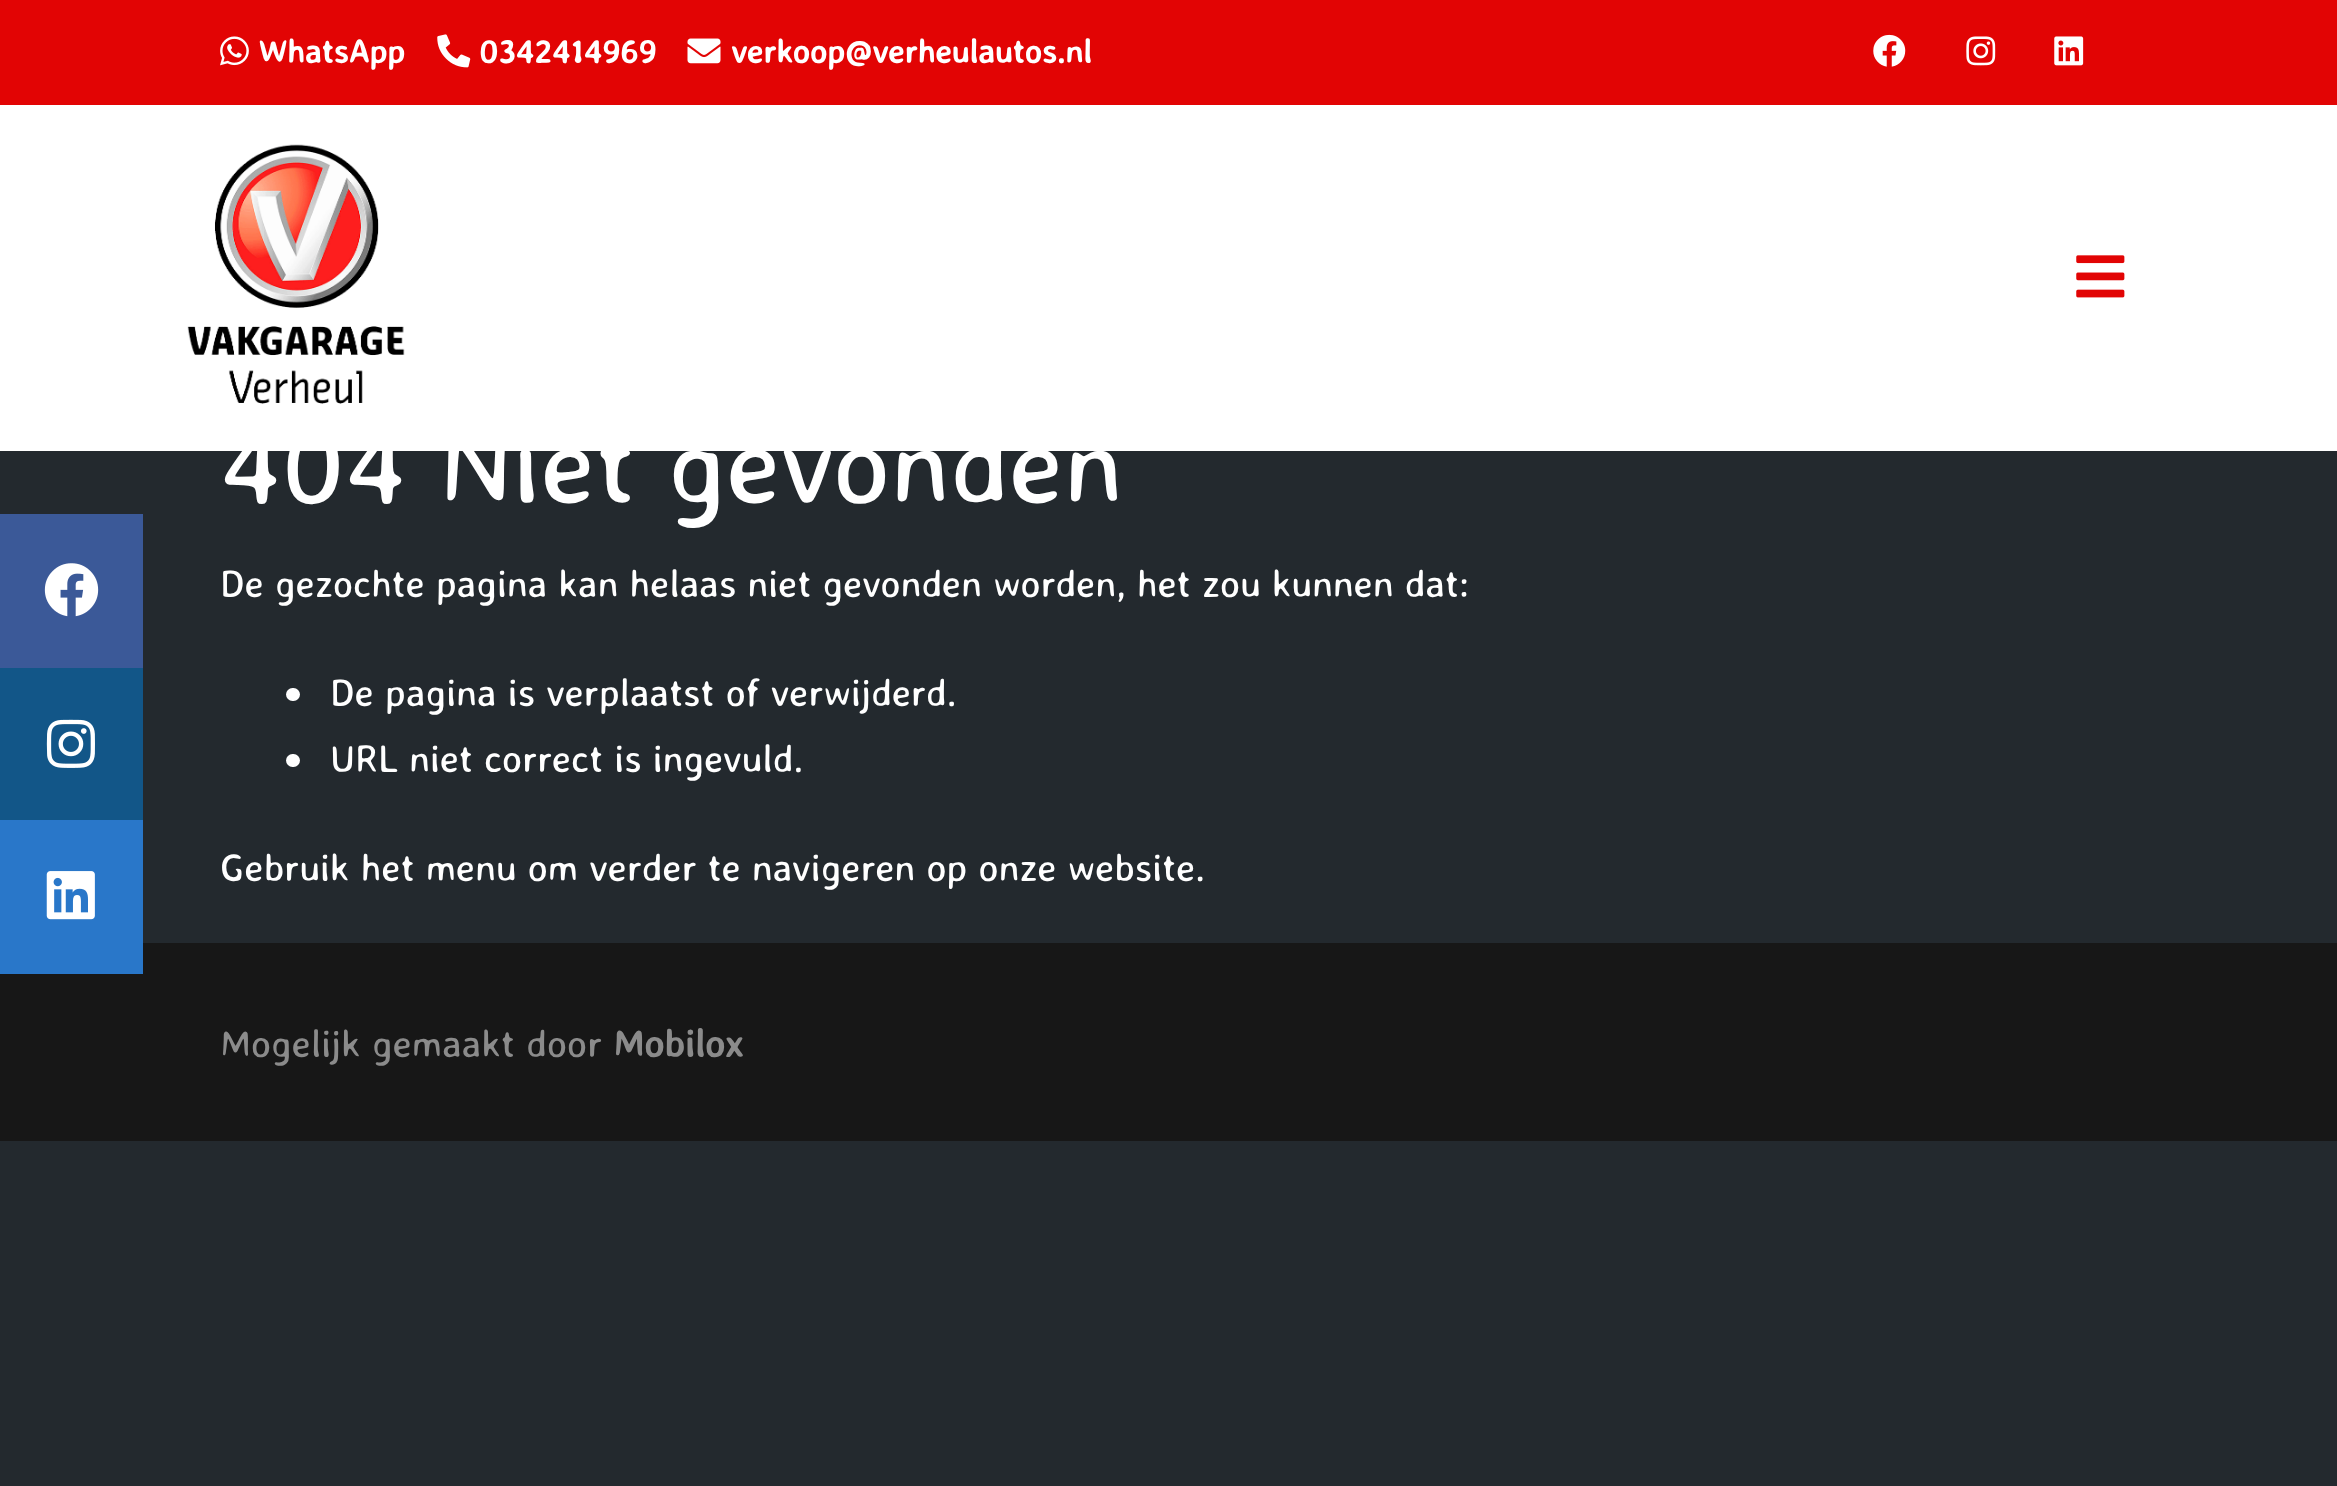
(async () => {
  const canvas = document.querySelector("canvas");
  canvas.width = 2337;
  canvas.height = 1486;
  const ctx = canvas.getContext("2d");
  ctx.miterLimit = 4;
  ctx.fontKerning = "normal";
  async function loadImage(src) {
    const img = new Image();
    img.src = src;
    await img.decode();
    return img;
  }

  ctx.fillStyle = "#23292e";
  ctx.fillRect(0, 0, 2337, 1486);
  ctx.fillStyle = "#e20404";
  ctx.fillRect(0, 0, 2337, 105);
  ctx.drawImage(await loadImage("img/1.png"), 220, 36, 29, 30);
  ctx.drawImage(await loadImage("img/2.png"), 437, 34, 34, 34);
  ctx.drawImage(await loadImage("img/3.png"), 687, 38, 34, 26);
  ctx.drawImage(await loadImage("img/4.png"), 1873, 34, 33, 33);
  ctx.drawImage(await loadImage("img/5.png"), 1966, 36, 30, 30);
  ctx.drawImage(await loadImage("img/6.png"), 2054, 36, 30, 30);
  ctx.fillStyle = "#ffffff";
  ctx.fillRect(0, 105, 2337, 346);
  ctx.drawImage(await loadImage("img/7.png"), 187, 144, 218, 260);
  ctx.drawImage(await loadImage("img/8.png"), 2076, 255, 49, 43);
  ctx.fillStyle = "#3b5998";
  ctx.fillRect(0, 514, 143, 154);
  ctx.drawImage(await loadImage("img/9.png"), 44, 563, 55, 54);
  ctx.fillStyle = "#125688";
  ctx.fillRect(0, 668, 143, 152);
  ctx.drawImage(await loadImage("img/10.png"), 46, 719, 49, 49);
  ctx.fillStyle = "#171717";
  ctx.fillRect(0, 943, 2337, 198);
  ctx.fillStyle = "#2977c9";
  ctx.fillRect(0, 820, 143, 154);
  ctx.drawImage(await loadImage("img/11.png"), 46, 871, 49, 49);
  ctx.fillStyle = "#ffffff";
  ctx.beginPath();
  ctx.roundRect(286, 688, 14, 13, 6.5);
  ctx.fill();
  ctx.beginPath();
  ctx.roundRect(286, 754, 14, 13, 6.5);
  ctx.fill();
  ctx.font = "bold 33px Averia Sans Libre";
  for (const [text, x, y] of [
    ["WhatsApp", 258, 63],
    ["0342414969", 479, 63],
    ["verkoop@verheulautos.nl", 731, 63],
  ]) {
    ctx.fillText(text, x, y);
  }
  ctx.font = "110px Averia Sans Libre";
  ctx.fillText("404 Niet gevonden", 220, 503);
  ctx.font = "38.5px Averia Sans Libre";
  for (const [text, x, y] of [
    ["De gezochte pagina kan helaas niet gevonden worden, het zou kunnen dat:", 220, 597],
    ["De pagina is verplaatst of verwijderd.", 330, 706],
    ["URL niet correct is ingevuld.", 330, 772],
    ["Gebruik het menu om verder te navigeren op onze website.", 220, 881],
  ]) {
    ctx.fillText(text, x, y);
  }
  ctx.fillStyle = "#8b8b8b";
  ctx.fillText("Mogelijk gemaakt door", 220, 1057);
  ctx.font = "bold 38.5px Averia Sans Libre";
  ctx.fillText("Mobilox", 613, 1057);
})();
